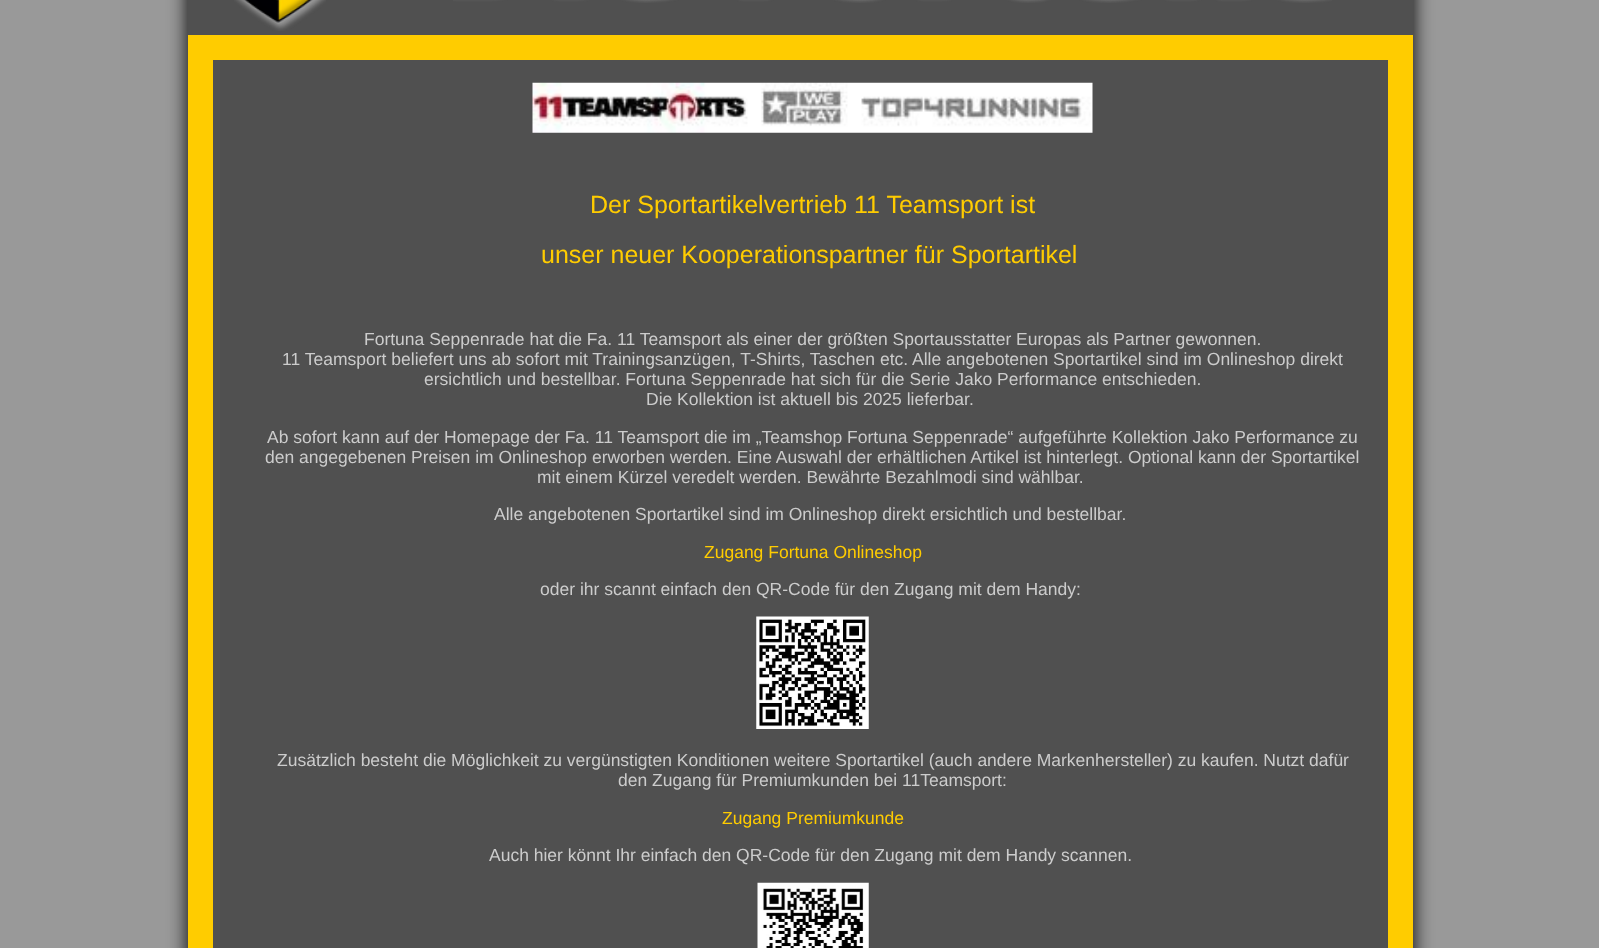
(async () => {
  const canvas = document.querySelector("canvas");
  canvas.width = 1599;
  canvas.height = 948;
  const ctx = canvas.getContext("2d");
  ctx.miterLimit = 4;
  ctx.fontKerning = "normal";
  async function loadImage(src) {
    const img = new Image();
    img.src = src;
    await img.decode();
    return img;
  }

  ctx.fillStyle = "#999999";
  ctx.fillRect(0, 0, 1599, 948);
  ctx.fillStyle = "#000000";
  ctx.filter = "blur(9.5px)";
  ctx.beginPath();
  ctx.rect(188, -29, 1225, 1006);
  ctx.fill();
  ctx.filter = "none";
  ctx.fillStyle = "#ffcc00";
  ctx.fillRect(188, 35, 1225, 913);
  ctx.fillStyle = "#505050";
  ctx.fillRect(188, 0, 1225, 35);
  ctx.drawImage(await loadImage("img/1.png"), 234, 0, 92, 31);
  ctx.drawImage(await loadImage("img/2.png"), 453, 0, 879, 3);
  ctx.fillRect(213, 60, 1175, 888);
  ctx.drawImage(await loadImage("img/3.png"), 532, 82, 561, 51);
  ctx.drawImage(await loadImage("img/4.png"), 756, 616, 113, 113);
  ctx.drawImage(await loadImage("img/5.png"), 757, 882, 112, 66);
  ctx.font = "25px Liberation Sans";
  ctx.fillStyle = "#ffcc00";
  ctx.fillText("Der Sportartikelvertrieb 11 Teamsport ist", 590, 213);
  ctx.fillText("unser neuer Kooperationspartner für Sportartikel", 541, 263);
  ctx.font = "17.5px Liberation Sans";
  ctx.fillStyle = "#cccccc";
  for (const [text, x, y] of [
    ["Fortuna Seppenrade hat die Fa. 11 Teamsport als einer der größten Sportausstatter Europas als Partner gewonnen.", 364, 345],
    ["11 Teamsport beliefert uns ab sofort mit Trainingsanzügen, T-Shirts, Taschen etc. Alle angebotenen Sportartikel sind im Onlineshop direkt", 282, 365],
    ["ersichtlich und bestellbar. Fortuna Seppenrade hat sich für die Serie Jako Performance entschieden.", 424, 385],
    ["Die Kollektion ist aktuell bis 2025 lieferbar.", 646, 405],
    ["Ab sofort kann auf der Homepage der Fa. 11 Teamsport die im „Teamshop Fortuna Seppenrade“ aufgeführte Kollektion Jako Performance zu", 267, 443],
    ["den angegebenen Preisen im Onlineshop erworben werden. Eine Auswahl der erhältlichen Artikel ist hinterlegt. Optional kann der Sportartikel", 265, 463],
    ["mit einem Kürzel veredelt werden. Bewährte Bezahlmodi sind wählbar.", 537, 483],
    ["Alle angebotenen Sportartikel sind im Onlineshop direkt ersichtlich und bestellbar.", 494, 520],
  ]) {
    ctx.fillText(text, x, y);
  }
  ctx.fillStyle = "#ffcc00";
  ctx.fillText("Zugang Fortuna Onlineshop", 704, 558);
  ctx.fillStyle = "#cccccc";
  for (const [text, x, y] of [
    ["oder ihr scannt einfach den QR-Code für den Zugang mit dem Handy:", 540, 595],
    ["Zusätzlich besteht die Möglichkeit zu vergünstigten Konditionen weitere Sportartikel (auch andere Markenhersteller) zu kaufen. Nutzt dafür", 277, 766],
    ["den Zugang für Premiumkunden bei 11Teamsport:", 618, 786],
  ]) {
    ctx.fillText(text, x, y);
  }
  ctx.fillStyle = "#ffcc00";
  ctx.fillText("Zugang Premiumkunde", 722, 824);
  ctx.fillStyle = "#cccccc";
  ctx.fillText("Auch hier könnt Ihr einfach den QR-Code für den Zugang mit dem Handy scannen.", 489, 861);
})();
